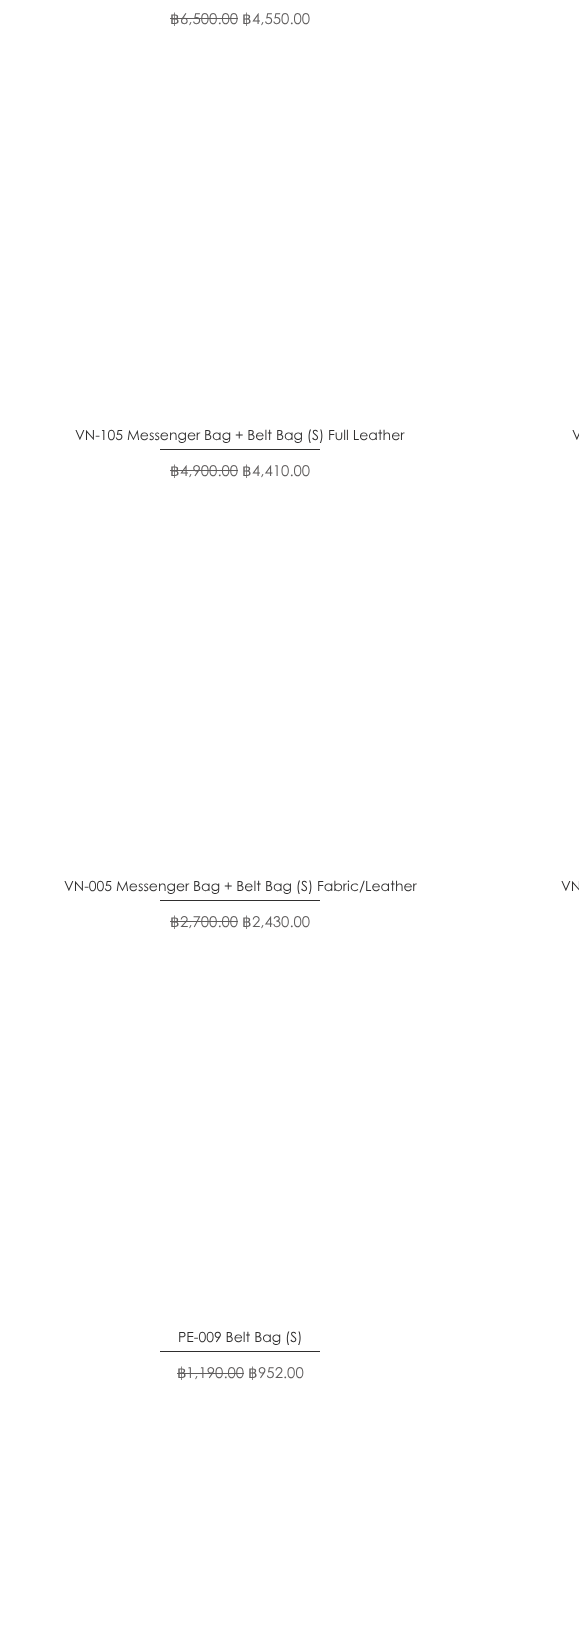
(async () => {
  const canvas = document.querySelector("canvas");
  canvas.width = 579;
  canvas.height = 1627;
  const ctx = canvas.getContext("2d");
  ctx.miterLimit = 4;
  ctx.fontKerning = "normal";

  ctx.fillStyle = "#ffffff";
  ctx.fillRect(0, 0, 579, 1627);
  for (const [x, y, w, h, color] of [
    [170, 18, 68, 1, "#605e5e"],
    [160, 449, 160, 1, "#2f2e2e"],
    [170, 470, 68, 1, "#605e5e"],
    [160, 900, 160, 1, "#2f2e2e"],
    [170, 921, 68, 1, "#605e5e"],
    [160, 1351, 160, 1, "#2f2e2e"],
    [177, 1373, 67, 1, "#605e5e"],
  ]) {
    ctx.fillStyle = color;
    ctx.fillRect(x, y, w, h);
  }
  ctx.font = "15px DejaVu Sans";
  ctx.fillText("฿", 170, 24);
  ctx.font = "15px Century Gothic";
  ctx.fillText("6,500.00", 180, 24);
  ctx.font = "15px DejaVu Sans";
  ctx.fillText("฿", 242, 24);
  ctx.font = "15px Century Gothic";
  ctx.fillText("4,550.00", 252, 24);
  ctx.font = "14px Century Gothic";
  ctx.fillStyle = "#2f2e2e";
  ctx.fillText("VN-105 Messenger Bag + Belt Bag (S) Full Leather", 75, 440);
  ctx.font = "15px DejaVu Sans";
  ctx.fillStyle = "#605e5e";
  ctx.fillText("฿", 170, 476);
  ctx.font = "15px Century Gothic";
  ctx.fillText("4,900.00", 180, 476);
  ctx.font = "15px DejaVu Sans";
  ctx.fillText("฿", 242, 476);
  ctx.font = "15px Century Gothic";
  ctx.fillText("4,410.00", 252, 476);
  ctx.font = "14px Century Gothic";
  ctx.fillStyle = "#2f2e2e";
  ctx.fillText("V", 572, 440);
  ctx.fillText("VN-005 Messenger Bag + Belt Bag (S) Fabric/Leather", 64, 891);
  ctx.font = "15px DejaVu Sans";
  ctx.fillStyle = "#605e5e";
  ctx.fillText("฿", 170, 927);
  ctx.font = "15px Century Gothic";
  ctx.fillText("2,700.00", 180, 927);
  ctx.font = "15px DejaVu Sans";
  ctx.fillText("฿", 242, 927);
  ctx.font = "15px Century Gothic";
  ctx.fillText("2,430.00", 252, 927);
  ctx.font = "14px Century Gothic";
  ctx.fillStyle = "#2f2e2e";
  ctx.fillText("VN", 561, 891);
  ctx.fillText("PE-009 Belt Bag (S)", 178, 1342);
  ctx.font = "15px DejaVu Sans";
  ctx.fillStyle = "#605e5e";
  ctx.fillText("฿", 177, 1378);
  ctx.font = "15px Century Gothic";
  ctx.fillText("1,190.00", 186, 1378);
  ctx.font = "15px DejaVu Sans";
  ctx.fillText("฿", 248, 1378);
  ctx.font = "15px Century Gothic";
  ctx.fillText("952.00", 258, 1378);
})();
